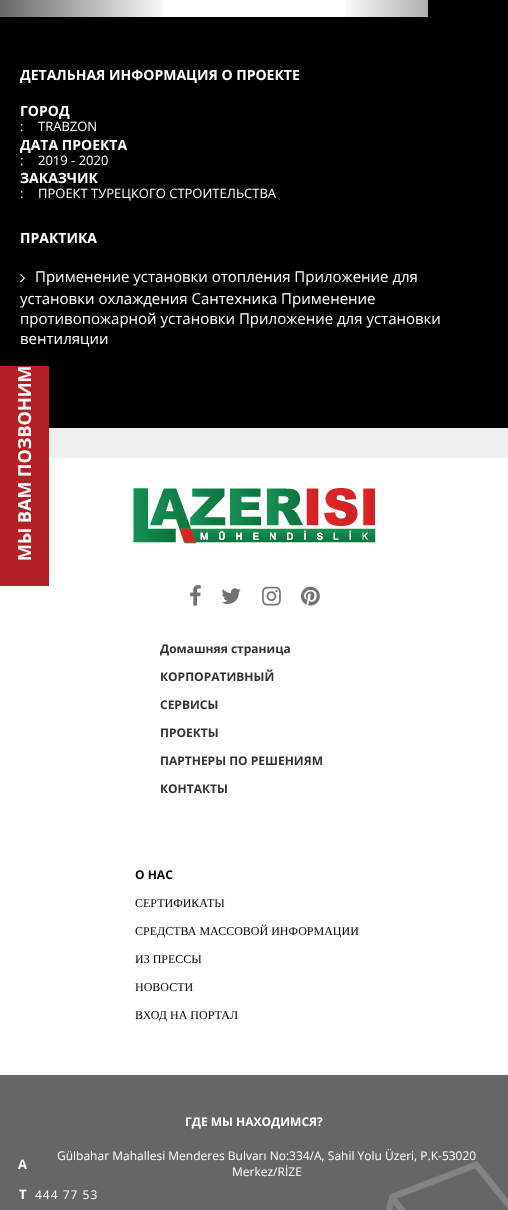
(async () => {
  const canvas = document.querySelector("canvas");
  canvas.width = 508;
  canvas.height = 1210;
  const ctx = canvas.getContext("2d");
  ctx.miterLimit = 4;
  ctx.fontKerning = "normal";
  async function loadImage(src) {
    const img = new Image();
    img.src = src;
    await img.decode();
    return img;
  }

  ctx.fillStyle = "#efefef";
  ctx.fillRect(0, 0, 508, 1210);
  ctx.fillStyle = "#ffffff";
  ctx.fillRect(0, 0, 428, 17);
  ctx.drawImage(await loadImage("img/1.png"), 0, 0, 163, 17);
  ctx.fillStyle = "#000000";
  ctx.fillRect(428, 0, 80, 17);
  ctx.drawImage(await loadImage("img/2.png"), 345, 0, 150, 17);
  ctx.fillRect(0, 17, 508, 411);
  ctx.drawImage(await loadImage("img/3.png"), 20, 274, 5, 9);
  ctx.fillStyle = "#ffffff";
  ctx.fillRect(0, 458, 508, 617);
  ctx.fillStyle = "#b22225";
  ctx.fillRect(0, 366, 49, 220);
  ctx.drawImage(await loadImage("img/4.png"), 133, 488, 243, 56);
  ctx.drawImage(await loadImage("img/5.png"), 190, 585, 11, 21);
  ctx.drawImage(await loadImage("img/6.png"), 221, 588, 20, 16);
  ctx.drawImage(await loadImage("img/7.png"), 262, 586, 19, 20);
  ctx.drawImage(await loadImage("img/8.png"), 301, 586, 19, 20);
  ctx.fillStyle = "#666666";
  ctx.fillRect(0, 1075, 508, 135);
  ctx.drawImage(await loadImage("img/9.png"), 385, 1161, 123, 49);
  ctx.font = "bold 14px Open Sans";
  ctx.fillStyle = "#ffffff";
  ctx.fillText("ДЕТАЛЬНАЯ ИНФОРМАЦИЯ О ПРОЕКТЕ", 20, 80);
  ctx.fillText("ГОРОД", 20, 116);
  ctx.font = "13px Open Sans";
  ctx.fillText(":", 20, 131);
  ctx.fillText("TRABZON", 38, 131);
  ctx.font = "bold 14px Open Sans";
  ctx.fillText("ДАТА ПРОЕКТА", 20, 150);
  ctx.font = "13px Open Sans";
  ctx.fillText(":", 20, 165);
  ctx.fillText("2019 - 2020", 38, 165);
  ctx.font = "bold 14px Open Sans";
  ctx.fillText("ЗАКАЗЧИК", 20, 183);
  ctx.font = "13px Open Sans";
  ctx.fillText(":", 20, 198);
  ctx.fillText("ПРОЕКТ ТУРЕЦКОГО СТРОИТЕЛЬСТВА", 38, 198);
  ctx.font = "bold 14px Open Sans";
  ctx.fillText("ПРАКТИКА", 20, 243);
  ctx.font = "15px Open Sans";
  for (const [text, x, y] of [
    ["Применение установки отопления Приложение для", 35, 282],
    ["установки охлаждения Сантехника Применение", 20, 304],
    ["противопожарной установки Приложение для установки", 20, 324],
    ["вентиляции", 20, 344],
  ]) {
    ctx.fillText(text, x, y);
  }
  ctx.font = "bold 18px Open Sans";
  ctx.save();
  ctx.translate(31, 561);
  ctx.rotate(-90 * Math.PI / 180);
  ctx.fillText("МЫ ВАМ ПОЗВОНИМ", 0, 0);
  ctx.restore();
  ctx.font = "bold 12px Open Sans";
  ctx.fillStyle = "#333333";
  for (const [text, x, y] of [
    ["Домашняя страница", 160, 653],
    ["КОРПОРАТИВНЫЙ", 160, 681],
    ["СЕРВИСЫ", 160, 709],
    ["ПРОЕКТЫ", 160, 737],
    ["ПАРТНЕРЫ ПО РЕШЕНИЯМ", 160, 765],
    ["КОНТАКТЫ", 160, 793],
  ]) {
    ctx.fillText(text, x, y);
  }
  ctx.fillStyle = "#000000";
  ctx.fillText("О НАС", 135, 879);
  ctx.font = "12px Liberation Serif";
  for (const [text, x, y] of [
    ["СЕРТИФИКАТЫ", 135, 907],
    ["СРЕДСТВА МАССОВОЙ ИНФОРМАЦИИ", 135, 935],
    ["ИЗ ПРЕССЫ", 135, 963],
    ["НОВОСТИ", 135, 991],
    ["ВХОД НА ПОРТАЛ", 135, 1019],
  ]) {
    ctx.fillText(text, x, y);
  }
  ctx.font = "bold 12px Open Sans";
  ctx.fillStyle = "#ffffff";
  ctx.fillText("ГДЕ МЫ НАХОДИМСЯ?", 185, 1126);
  ctx.font = "bold 13px Open Sans";
  ctx.fillText("A", 18, 1169);
  ctx.font = "12px Open Sans";
  ctx.fillText("Gülbahar Mahallesi Menderes Bulvarı No:334/A, Sahil Yolu Üzeri, P.K-53020", 57, 1160);
  ctx.fillText("Merkez/RİZE", 232, 1176);
  ctx.font = "bold 13px Open Sans";
  ctx.fillText("T", 19, 1199);
  ctx.letterSpacing = "1px";
  ctx.font = "12px Open Sans";
  ctx.fillText("444 77 53", 35, 1199);
})();
